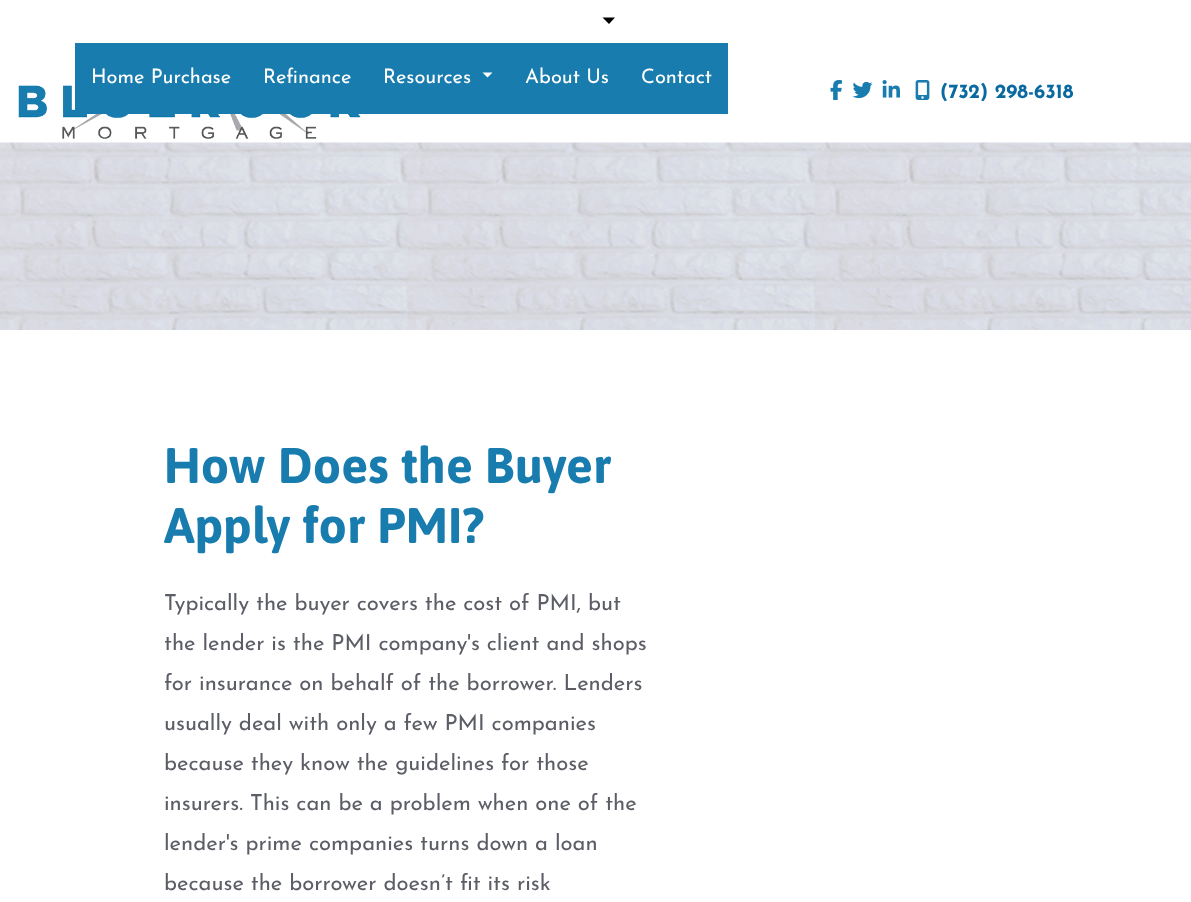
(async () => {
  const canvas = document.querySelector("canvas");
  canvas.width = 1191;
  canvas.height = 902;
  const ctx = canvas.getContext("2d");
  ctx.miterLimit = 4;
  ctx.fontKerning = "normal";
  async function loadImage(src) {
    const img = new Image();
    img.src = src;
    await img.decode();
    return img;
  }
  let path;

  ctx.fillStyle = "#ffffff";
  ctx.fillRect(0, 0, 1191, 902);
  ctx.fillStyle = "#000000";
  path = new Path2D("M602.5 17.5H615L609 24Z");
  ctx.fill(path);
  ctx.drawImage(await loadImage("img/1.png"), 18, 85, 343, 54);
  ctx.fillStyle = "#197cae";
  ctx.fillRect(75, 43, 293, 71);
  ctx.fillRect(368, 43, 360, 71);
  ctx.fillStyle = "#ffffff";
  path = new Path2D("M482.5 72.5H492.5L487.5 77.5Z");
  ctx.fill(path);
  ctx.drawImage(await loadImage("img/2.png"), 830, 80, 12, 20);
  ctx.drawImage(await loadImage("img/3.png"), 852, 81, 21, 18);
  ctx.drawImage(await loadImage("img/4.png"), 882, 80, 18, 18);
  ctx.drawImage(await loadImage("img/5.png"), 915, 80, 15, 20);
  ctx.drawImage(await loadImage("img/6.png"), 0, 142, 1191, 188);
  ctx.font = "20px Josefin Sans";
  for (const [text, x, y] of [
    ["Home Purchase", 91, 83],
    ["Refinance", 263, 83],
    ["Resources", 383, 83],
    ["About Us", 525, 83],
    ["Contact", 641, 83],
  ]) {
    ctx.fillText(text, x, y);
  }
  ctx.font = "bold 20px Josefin Sans";
  ctx.fillStyle = "#0969a0";
  ctx.fillText("(732) 298-6318", 940, 98);
  ctx.font = "bold 50px Asap";
  ctx.fillStyle = "#197cae";
  ctx.fillText("How Does the Buyer", 164, 483);
  ctx.fillText("Apply for PMI?", 164, 543);
  ctx.font = "22px Josefin Sans";
  ctx.fillStyle = "#5c5e66";
  for (const [text, x, y] of [
    ["Typically the buyer covers the cost of PMI, but", 164, 610],
    ["the lender is the PMI company's client and shops", 164, 650],
    ["for insurance on behalf of the borrower. Lenders", 164, 690],
    ["usually deal with only a few PMI companies", 164, 730],
    ["because they know the guidelines for those", 164, 770],
    ["insurers. This can be a problem when one of the", 164, 810],
    ["lender's prime companies turns down a loan", 164, 850],
    ["because the borrower doesn’t fit its risk", 164, 890],
  ]) {
    ctx.fillText(text, x, y);
  }
})();
